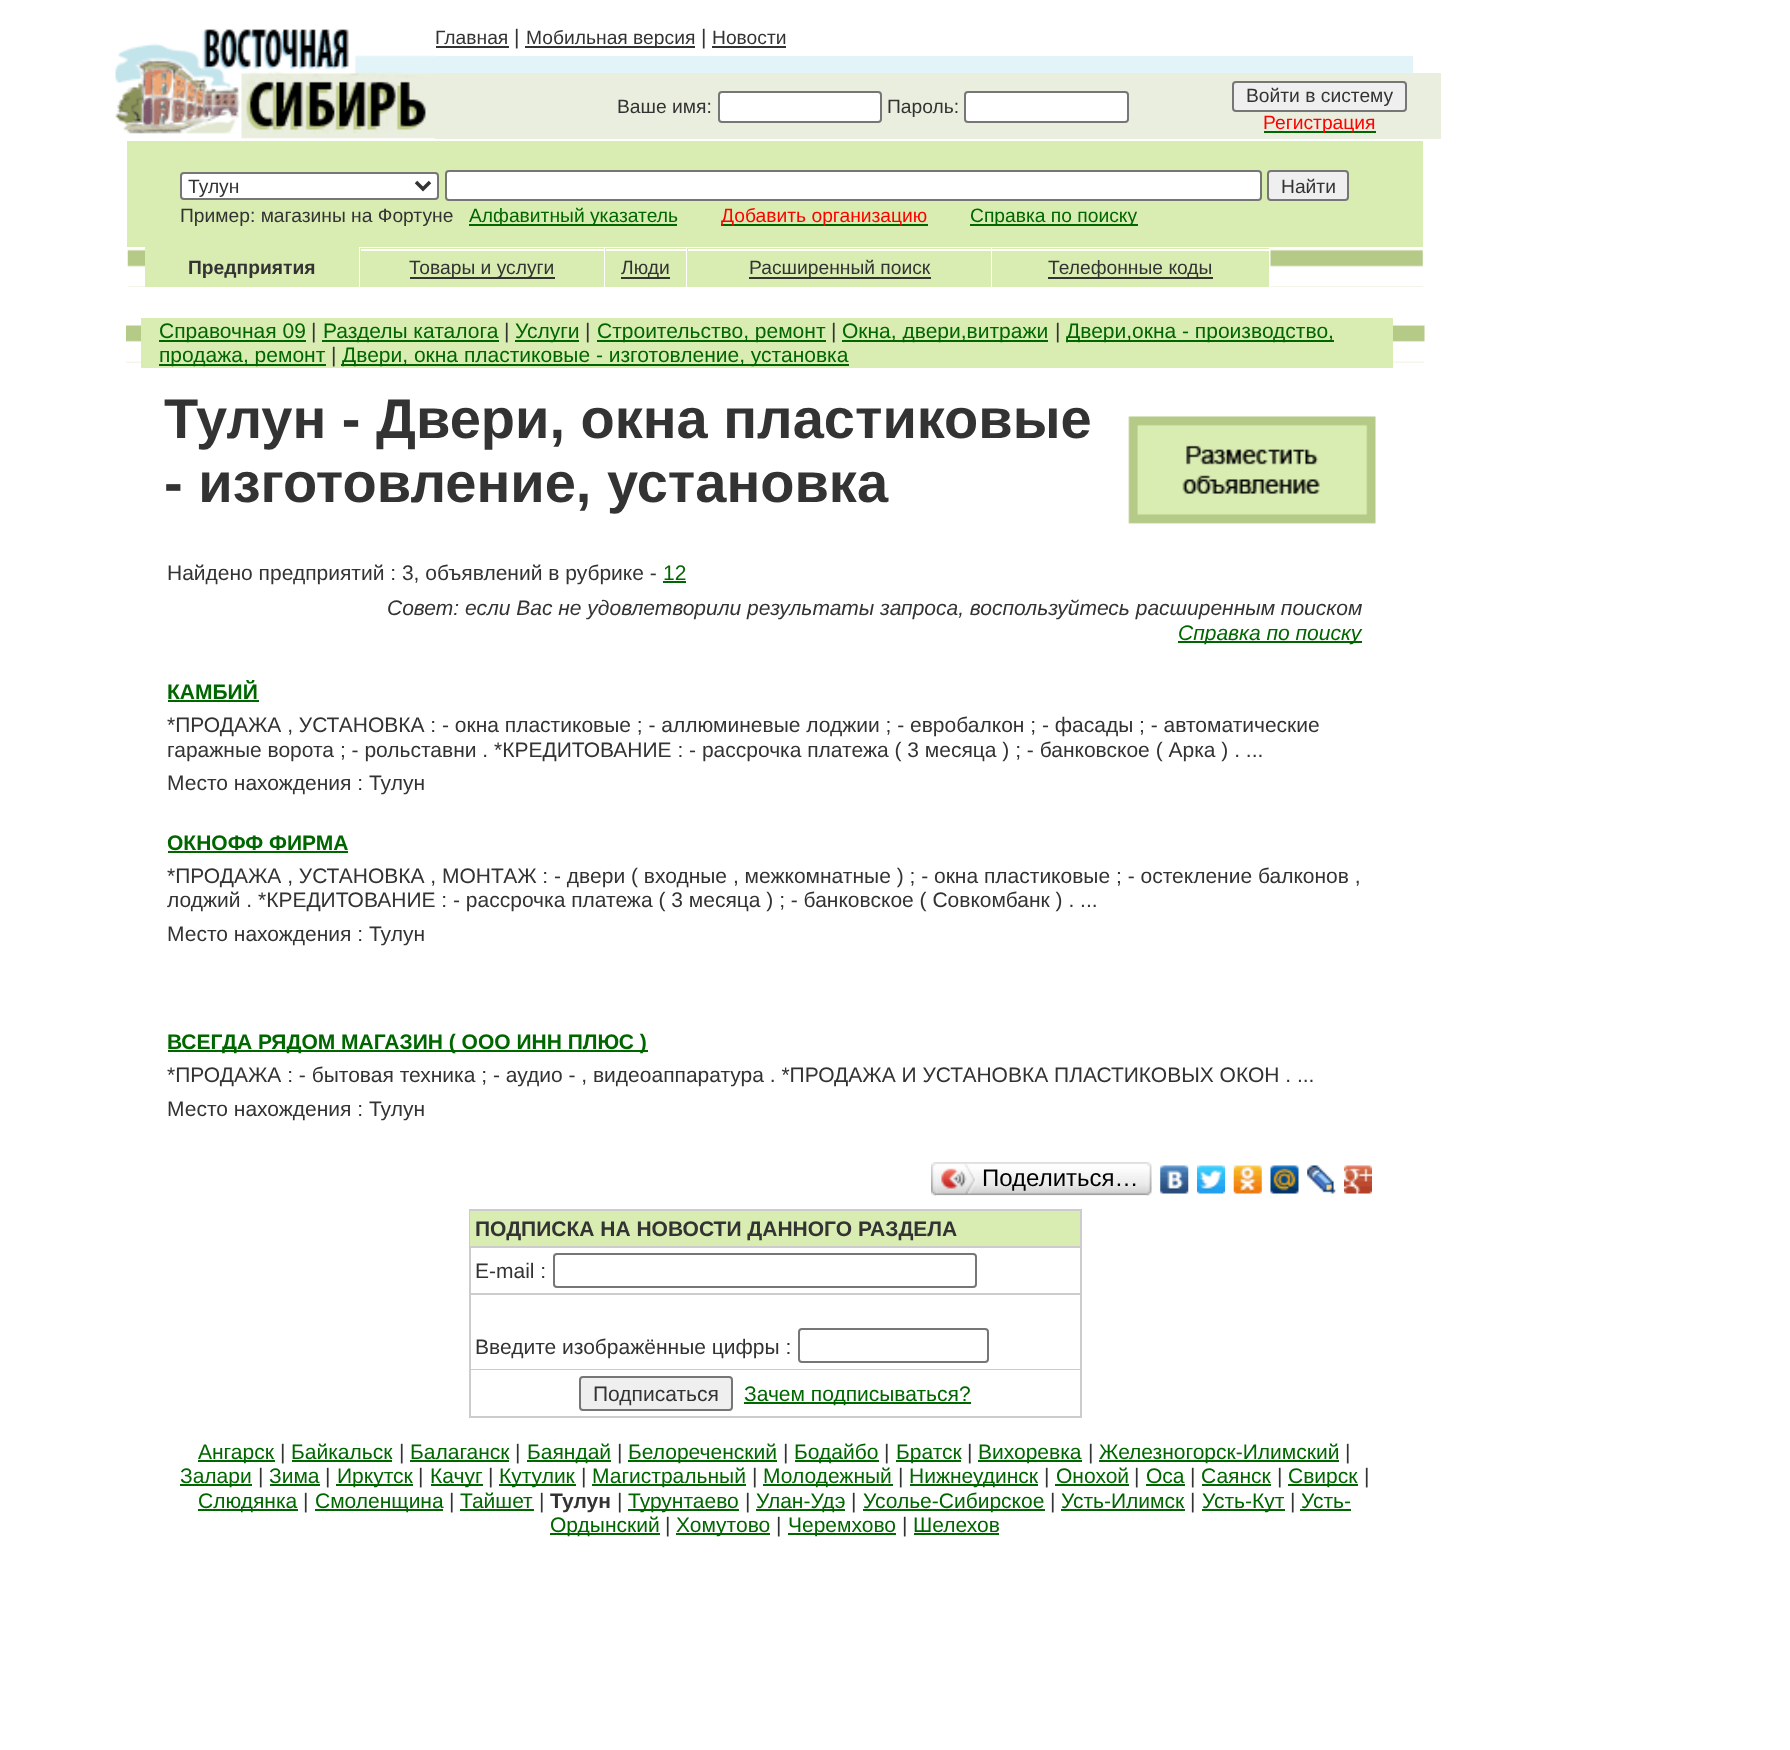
(async () => {
  const canvas = document.querySelector("canvas");
  canvas.width = 1790;
  canvas.height = 1750;
  const ctx = canvas.getContext("2d");
  ctx.miterLimit = 4;
  ctx.fontKerning = "normal";
  async function loadImage(src) {
    const img = new Image();
    img.src = src;
    await img.decode();
    return img;
  }
  let path;

  ctx.fillStyle = "#ffffff";
  ctx.fillRect(0, 0, 1790, 1750);
  ctx.fillStyle = "#e2f4f8";
  ctx.fillRect(435, 56, 978, 17);
  ctx.fillStyle = "#eaeede";
  ctx.fillRect(435, 73, 1006, 66);
  ctx.drawImage(await loadImage("img/1.png"), 115, 29, 321, 110);
  for (const [x, y, w, h, color] of [
    [436, 46, 73, 2, "#333333"],
    [525, 46, 170, 2, "#333333"],
    [712, 46, 74, 2, "#333333"],
  ]) {
    ctx.fillStyle = color;
    ctx.fillRect(x, y, w, h);
  }
  ctx.fillStyle = "#ffffff";
  ctx.beginPath();
  ctx.roundRect(719, 92, 162, 30, 3);
  ctx.fill();
  ctx.strokeStyle = "#767676";
  ctx.lineWidth = 2;
  ctx.stroke();
  ctx.beginPath();
  ctx.roundRect(965, 92, 163, 30, 3);
  ctx.fill();
  ctx.stroke();
  ctx.fillStyle = "#efefef";
  ctx.beginPath();
  ctx.roundRect(1233, 82, 173, 29, 3);
  ctx.fill();
  ctx.stroke();
  ctx.fillStyle = "#006600";
  ctx.fillRect(1264, 131, 112, 2);
  ctx.fillStyle = "#d9ecb1";
  ctx.fillRect(127, 141, 1296, 106);
  ctx.fillStyle = "#ffffff";
  ctx.beginPath();
  ctx.roundRect(181, 173, 257, 26, 3);
  ctx.fill();
  ctx.stroke();
  path = new Path2D("M416 182L423 189L430 182");
  ctx.strokeStyle = "#333333";
  ctx.lineWidth = 3.5;
  ctx.stroke(path);
  ctx.beginPath();
  ctx.roundRect(446, 171, 815, 29, 3);
  ctx.fill();
  ctx.strokeStyle = "#767676";
  ctx.lineWidth = 2;
  ctx.stroke();
  ctx.fillStyle = "#efefef";
  ctx.beginPath();
  ctx.roundRect(1268, 171, 80, 29, 3);
  ctx.fill();
  ctx.stroke();
  for (const [x, y, w, h, color] of [
    [469, 224, 208, 2, "#006600"],
    [721, 224, 207, 2, "#006600"],
    [970, 224, 168, 2, "#006600"],
  ]) {
    ctx.fillStyle = color;
    ctx.fillRect(x, y, w, h);
  }
  ctx.drawImage(await loadImage("img/2.png"), 127, 249, 18, 38);
  for (const [x, y, w, h, color] of [
    [145, 247, 214, 40, "#d9ecb1"],
    [360, 248, 244, 39, "#d9ecb1"],
    [361, 249, 243, 2, "#ffffff"],
    [410, 277, 145, 2, "#333333"],
    [605, 248, 81, 39, "#d9ecb1"],
    [606, 249, 80, 2, "#ffffff"],
    [621, 277, 49, 2, "#333333"],
    [687, 248, 304, 39, "#d9ecb1"],
    [688, 249, 303, 2, "#ffffff"],
    [749, 277, 182, 2, "#333333"],
    [992, 248, 277, 39, "#d9ecb1"],
    [992, 249, 277, 2, "#ffffff"],
    [1048, 277, 165, 2, "#333333"],
  ]) {
    ctx.fillStyle = color;
    ctx.fillRect(x, y, w, h);
  }
  ctx.drawImage(await loadImage("img/3.png"), 1270, 249, 153, 38);
  ctx.fillStyle = "#d9ecb1";
  ctx.fillRect(141, 318, 1252, 50);
  ctx.drawImage(await loadImage("img/4.png"), 126, 325, 15, 38);
  for (const [x, y, w, h, color] of [
    [159, 340, 147, 2, "#006600"],
    [322, 340, 177, 2, "#006600"],
    [515, 340, 64, 2, "#006600"],
    [597, 340, 229, 2, "#006600"],
    [842, 340, 206, 2, "#006600"],
    [1066, 340, 268, 2, "#006600"],
    [159, 364, 167, 2, "#006600"],
    [341, 364, 508, 2, "#006600"],
  ]) {
    ctx.fillStyle = color;
    ctx.fillRect(x, y, w, h);
  }
  ctx.drawImage(await loadImage("img/5.png"), 1393, 325, 32, 38);
  ctx.drawImage(await loadImage("img/6.png"), 1128, 416, 248, 108);
  for (const [x, y, w, h, color] of [
    [663, 581, 23, 2, "#006600"],
    [1178, 641, 184, 2, "#006600"],
    [168, 700, 91, 2, "#006600"],
    [168, 851, 180, 2, "#006600"],
    [168, 1050, 480, 2, "#006600"],
  ]) {
    ctx.fillStyle = color;
    ctx.fillRect(x, y, w, h);
  }
  ctx.drawImage(await loadImage("img/7.png"), 936, 1162, 211, 34);
  ctx.drawImage(await loadImage("img/8.png"), 931, 1162, 6, 34);
  ctx.drawImage(await loadImage("img/9.png"), 941, 1164, 36, 30);
  ctx.drawImage(await loadImage("img/10.png"), 1146, 1162, 6, 34);
  ctx.drawImage(await loadImage("img/11.png"), 1160, 1165, 29, 29);
  ctx.drawImage(await loadImage("img/12.png"), 1197, 1165, 28, 29);
  ctx.drawImage(await loadImage("img/13.png"), 1233, 1165, 29, 29);
  ctx.drawImage(await loadImage("img/14.png"), 1270, 1165, 29, 29);
  ctx.drawImage(await loadImage("img/15.png"), 1307, 1165, 29, 29);
  ctx.drawImage(await loadImage("img/16.png"), 1344, 1165, 28, 29);
  for (const [x, y, w, h, color] of [
    [469, 1209, 613, 209, "#cccccc"],
    [470, 1211, 610, 35, "#d9ecb1"],
    [471, 1248, 609, 45, "#ffffff"],
  ]) {
    ctx.fillStyle = color;
    ctx.fillRect(x, y, w, h);
  }
  ctx.beginPath();
  ctx.roundRect(554, 1254, 422, 33, 3);
  ctx.stroke();
  ctx.fillRect(471, 1295, 609, 74);
  ctx.beginPath();
  ctx.roundRect(799, 1329, 189, 33, 3);
  ctx.stroke();
  ctx.fillRect(471, 1370, 609, 46);
  ctx.fillStyle = "#efefef";
  ctx.beginPath();
  ctx.roundRect(580, 1377, 152, 33, 3);
  ctx.fill();
  ctx.stroke();
  for (const [x, y, w, h, color] of [
    [744, 1402, 227, 2, "#006600"],
    [198, 1460, 77, 2, "#006600"],
    [292, 1460, 100, 2, "#006600"],
    [410, 1460, 99, 2, "#006600"],
    [527, 1460, 84, 2, "#006600"],
    [628, 1460, 149, 2, "#006600"],
    [795, 1460, 84, 2, "#006600"],
    [896, 1460, 65, 2, "#006600"],
    [978, 1460, 104, 2, "#006600"],
    [1099, 1460, 240, 2, "#006600"],
    [180, 1484, 72, 2, "#006600"],
    [270, 1484, 50, 2, "#006600"],
    [336, 1484, 77, 2, "#006600"],
    [431, 1484, 52, 2, "#006600"],
    [499, 1484, 77, 2, "#006600"],
    [592, 1484, 154, 2, "#006600"],
    [763, 1484, 130, 2, "#006600"],
    [910, 1484, 128, 2, "#006600"],
    [1055, 1484, 74, 2, "#006600"],
    [1146, 1484, 39, 2, "#006600"],
    [1202, 1484, 69, 2, "#006600"],
    [1288, 1484, 70, 2, "#006600"],
    [198, 1509, 100, 2, "#006600"],
    [315, 1509, 128, 2, "#006600"],
    [460, 1509, 74, 2, "#006600"],
    [628, 1509, 111, 2, "#006600"],
    [756, 1509, 89, 2, "#006600"],
    [863, 1509, 182, 2, "#006600"],
    [1061, 1509, 124, 2, "#006600"],
    [1202, 1509, 83, 2, "#006600"],
    [1300, 1509, 51, 2, "#006600"],
    [550, 1533, 110, 2, "#006600"],
    [676, 1533, 94, 2, "#006600"],
    [788, 1533, 108, 2, "#006600"],
    [914, 1533, 85, 2, "#006600"],
  ]) {
    ctx.fillStyle = color;
    ctx.fillRect(x, y, w, h);
  }
  ctx.font = "19.25px Liberation Sans";
  ctx.fillStyle = "#333333";
  ctx.fillText("Главная", 435, 44);
  ctx.font = "21px Liberation Sans";
  ctx.fillText("|", 514, 44);
  ctx.font = "19.25px Liberation Sans";
  ctx.fillText("Мобильная версия", 526, 44);
  ctx.font = "21px Liberation Sans";
  ctx.fillText("|", 701, 44);
  ctx.font = "19.25px Liberation Sans";
  for (const [text, x, y] of [
    ["Новости", 712, 44],
    ["Ваше имя:", 617, 113],
    ["Пароль:", 887, 113],
    ["Войти в систему", 1246, 102],
  ]) {
    ctx.fillText(text, x, y);
  }
  ctx.fillStyle = "#ff0000";
  ctx.fillText("Регистрация", 1263, 129);
  ctx.fillStyle = "#333333";
  for (const [text, x, y] of [
    ["Тулун", 188, 193],
    ["Найти", 1281, 193],
    ["Пример: магазины на Фортуне", 180, 222],
  ]) {
    ctx.fillText(text, x, y);
  }
  ctx.fillStyle = "#006600";
  ctx.fillText("Алфавитный указатель", 469, 222);
  ctx.fillStyle = "#ff0000";
  ctx.fillText("Добавить организацию", 721, 222);
  ctx.fillStyle = "#006600";
  ctx.fillText("Справка по поиску", 970, 222);
  ctx.font = "bold 19.25px Liberation Sans";
  ctx.fillStyle = "#333333";
  ctx.fillText("Предприятия", 188, 274);
  ctx.font = "19.25px Liberation Sans";
  for (const [text, x, y] of [
    ["Товары и услуги", 409, 274],
    ["Люди", 621, 274],
    ["Расширенный поиск", 749, 274],
    ["Телефонные коды", 1048, 274],
  ]) {
    ctx.fillText(text, x, y);
  }
  ctx.font = "21px Liberation Sans";
  ctx.fillStyle = "#006600";
  ctx.fillText("Справочная 09", 159, 338);
  ctx.fillStyle = "#333333";
  ctx.fillText("|", 311, 338);
  ctx.fillStyle = "#006600";
  ctx.fillText("Разделы каталога", 323, 338);
  ctx.fillStyle = "#333333";
  ctx.fillText("|", 504, 338);
  ctx.fillStyle = "#006600";
  ctx.fillText("Услуги", 515, 338);
  ctx.fillStyle = "#333333";
  ctx.fillText("|", 585, 338);
  ctx.fillStyle = "#006600";
  ctx.fillText("Строительство, ремонт", 597, 338);
  ctx.fillStyle = "#333333";
  ctx.fillText("|", 831, 338);
  ctx.fillStyle = "#006600";
  ctx.fillText("Окна, двери,витражи", 842, 338);
  ctx.fillStyle = "#333333";
  ctx.fillText("|", 1055, 338);
  ctx.fillStyle = "#006600";
  ctx.fillText("Двери,окна - производство,", 1066, 338);
  ctx.fillText("продажа, ремонт", 159, 362);
  ctx.fillStyle = "#333333";
  ctx.fillText("|", 331, 362);
  ctx.fillStyle = "#006600";
  ctx.fillText("Двери, окна пластиковые - изготовление, установка", 342, 362);
  ctx.font = "bold 56px Liberation Sans";
  ctx.fillStyle = "#333333";
  ctx.fillText("Тулун - Двери, окна пластиковые", 164, 438);
  ctx.fillText("- изготовление, установка", 164, 502);
  ctx.font = "21px Liberation Sans";
  ctx.fillText("Найдено предприятий : 3, объявлений в рубрике -", 167, 580);
  ctx.fillStyle = "#006600";
  ctx.fillText("12", 663, 580);
  ctx.font = "italic 21px Liberation Sans";
  ctx.fillStyle = "#333333";
  ctx.fillText("Совет: если Вас не удовлетворили результаты запроса, воспользуйтесь расширенным поиском", 387, 615);
  ctx.fillStyle = "#006600";
  ctx.fillText("Справка по поиску", 1178, 640);
  ctx.font = "bold 21px Liberation Sans";
  ctx.fillText("КАМБИЙ", 167, 699);
  ctx.font = "21px Liberation Sans";
  ctx.fillStyle = "#333333";
  for (const [text, x, y] of [
    ["*ПРОДАЖА , УСТАНОВКА : - окна пластиковые ; - аллюминевые лоджии ; - евробалкон ; - фасады ; - автоматические", 167, 732],
    ["гаражные ворота ; - рольставни . *КРЕДИТОВАНИЕ : - рассрочка платежа ( 3 месяца ) ; - банковское ( Арка ) . ...", 167, 757],
    ["Место нахождения : Тулун", 167, 790],
  ]) {
    ctx.fillText(text, x, y);
  }
  ctx.font = "bold 21px Liberation Sans";
  ctx.fillStyle = "#006600";
  ctx.fillText("ОКНОФФ ФИРМА", 167, 850);
  ctx.font = "21px Liberation Sans";
  ctx.fillStyle = "#333333";
  for (const [text, x, y] of [
    ["*ПРОДАЖА , УСТАНОВКА , МОНТАЖ : - двери ( входные , межкомнатные ) ; - окна пластиковые ; - остекление балконов ,", 167, 883],
    ["лоджий . *КРЕДИТОВАНИЕ : - рассрочка платежа ( 3 месяца ) ; - банковское ( Совкомбанк ) . ...", 167, 907],
    ["Место нахождения : Тулун", 167, 941],
  ]) {
    ctx.fillText(text, x, y);
  }
  ctx.font = "bold 21px Liberation Sans";
  ctx.fillStyle = "#006600";
  ctx.fillText("ВСЕГДА РЯДОМ МАГАЗИН ( ООО ИНН ПЛЮС )", 167, 1049);
  ctx.font = "21px Liberation Sans";
  ctx.fillStyle = "#333333";
  ctx.fillText("*ПРОДАЖА : - бытовая техника ; - аудио - , видеоаппаратура . *ПРОДАЖА И УСТАНОВКА ПЛАСТИКОВЫХ ОКОН . ...", 167, 1082);
  ctx.fillText("Место нахождения : Тулун", 167, 1116);
  ctx.font = "24px Liberation Sans";
  ctx.fillStyle = "#000000";
  ctx.fillText("Поделиться…", 982, 1186);
  ctx.font = "bold 21px Liberation Sans";
  ctx.fillStyle = "#333333";
  ctx.fillText("ПОДПИСКА НА НОВОСТИ ДАННОГО РАЗДЕЛА", 475, 1236);
  ctx.font = "21px Liberation Sans";
  for (const [text, x, y] of [
    ["E-mail :", 475, 1278],
    ["Введите изображённые цифры :", 475, 1354],
    ["Подписаться", 593, 1401],
  ]) {
    ctx.fillText(text, x, y);
  }
  ctx.fillStyle = "#006600";
  ctx.fillText("Зачем подписываться?", 744, 1401);
  ctx.fillText("Ангарск", 198, 1459);
  ctx.fillStyle = "#333333";
  ctx.fillText("|", 280, 1459);
  ctx.fillStyle = "#006600";
  ctx.fillText("Байкальск", 291, 1459);
  ctx.fillStyle = "#333333";
  ctx.fillText("|", 399, 1459);
  ctx.fillStyle = "#006600";
  ctx.fillText("Балаганск", 410, 1459);
  ctx.fillStyle = "#333333";
  ctx.fillText("|", 515, 1459);
  ctx.fillStyle = "#006600";
  ctx.fillText("Баяндай", 527, 1459);
  ctx.fillStyle = "#333333";
  ctx.fillText("|", 617, 1459);
  ctx.fillStyle = "#006600";
  ctx.fillText("Белореченский", 628, 1459);
  ctx.fillStyle = "#333333";
  ctx.fillText("|", 783, 1459);
  ctx.fillStyle = "#006600";
  ctx.fillText("Бодайбо", 794, 1459);
  ctx.fillStyle = "#333333";
  ctx.fillText("|", 884, 1459);
  ctx.fillStyle = "#006600";
  ctx.fillText("Братск", 896, 1459);
  ctx.fillStyle = "#333333";
  ctx.fillText("|", 967, 1459);
  ctx.fillStyle = "#006600";
  ctx.fillText("Вихоревка", 978, 1459);
  ctx.fillStyle = "#333333";
  ctx.fillText("|", 1088, 1459);
  ctx.fillStyle = "#006600";
  ctx.fillText("Железногорск-Илимский", 1099, 1459);
  ctx.fillStyle = "#333333";
  ctx.fillText("|", 1345, 1459);
  ctx.fillStyle = "#006600";
  ctx.fillText("Залари", 180, 1483);
  ctx.fillStyle = "#333333";
  ctx.fillText("|", 258, 1483);
  ctx.fillStyle = "#006600";
  ctx.fillText("Зима", 269, 1483);
  ctx.fillStyle = "#333333";
  ctx.fillText("|", 325, 1483);
  ctx.fillStyle = "#006600";
  ctx.fillText("Иркутск", 337, 1483);
  ctx.fillStyle = "#333333";
  ctx.fillText("|", 418, 1483);
  ctx.fillStyle = "#006600";
  ctx.fillText("Качуг", 430, 1483);
  ctx.fillStyle = "#333333";
  ctx.fillText("|", 488, 1483);
  ctx.fillStyle = "#006600";
  ctx.fillText("Кутулик", 499, 1483);
  ctx.fillStyle = "#333333";
  ctx.fillText("|", 581, 1483);
  ctx.fillStyle = "#006600";
  ctx.fillText("Магистральный", 592, 1483);
  ctx.fillStyle = "#333333";
  ctx.fillText("|", 752, 1483);
  ctx.fillStyle = "#006600";
  ctx.fillText("Молодежный", 763, 1483);
  ctx.fillStyle = "#333333";
  ctx.fillText("|", 898, 1483);
  ctx.fillStyle = "#006600";
  ctx.fillText("Нижнеудинск", 909, 1483);
  ctx.fillStyle = "#333333";
  ctx.fillText("|", 1044, 1483);
  ctx.fillStyle = "#006600";
  ctx.fillText("Онохой", 1056, 1483);
  ctx.fillStyle = "#333333";
  ctx.fillText("|", 1134, 1483);
  ctx.fillStyle = "#006600";
  ctx.fillText("Оса", 1146, 1483);
  ctx.fillStyle = "#333333";
  ctx.fillText("|", 1190, 1483);
  ctx.fillStyle = "#006600";
  ctx.fillText("Саянск", 1201, 1483);
  ctx.fillStyle = "#333333";
  ctx.fillText("|", 1277, 1483);
  ctx.fillStyle = "#006600";
  ctx.fillText("Свирск", 1288, 1483);
  ctx.fillStyle = "#333333";
  ctx.fillText("|", 1364, 1483);
  ctx.fillStyle = "#006600";
  ctx.fillText("Слюдянка", 198, 1508);
  ctx.fillStyle = "#333333";
  ctx.fillText("|", 303, 1508);
  ctx.fillStyle = "#006600";
  ctx.fillText("Смоленщина", 315, 1508);
  ctx.fillStyle = "#333333";
  ctx.fillText("|", 449, 1508);
  ctx.fillStyle = "#006600";
  ctx.fillText("Тайшет", 460, 1508);
  ctx.fillStyle = "#333333";
  ctx.fillText("|", 539, 1508);
  ctx.font = "bold 21px Liberation Sans";
  ctx.fillText("Тулун", 550, 1508);
  ctx.font = "21px Liberation Sans";
  ctx.fillText("|", 617, 1508);
  ctx.fillStyle = "#006600";
  ctx.fillText("Турунтаево", 628, 1508);
  ctx.fillStyle = "#333333";
  ctx.fillText("|", 745, 1508);
  ctx.fillStyle = "#006600";
  ctx.fillText("Улан-Удэ", 756, 1508);
  ctx.fillStyle = "#333333";
  ctx.fillText("|", 851, 1508);
  ctx.fillStyle = "#006600";
  ctx.fillText("Усолье-Сибирское", 863, 1508);
  ctx.fillStyle = "#333333";
  ctx.fillText("|", 1050, 1508);
  ctx.fillStyle = "#006600";
  ctx.fillText("Усть-Илимск", 1061, 1508);
  ctx.fillStyle = "#333333";
  ctx.fillText("|", 1190, 1508);
  ctx.fillStyle = "#006600";
  ctx.fillText("Усть-Кут", 1202, 1508);
  ctx.fillStyle = "#333333";
  ctx.fillText("|", 1290, 1508);
  ctx.fillStyle = "#006600";
  ctx.fillText("Усть-", 1301, 1508);
  ctx.fillText("Ордынский", 550, 1532);
  ctx.fillStyle = "#333333";
  ctx.fillText("|", 665, 1532);
  ctx.fillStyle = "#006600";
  ctx.fillText("Хомутово", 676, 1532);
  ctx.fillStyle = "#333333";
  ctx.fillText("|", 776, 1532);
  ctx.fillStyle = "#006600";
  ctx.fillText("Черемхово", 788, 1532);
  ctx.fillStyle = "#333333";
  ctx.fillText("|", 902, 1532);
  ctx.fillStyle = "#006600";
  ctx.fillText("Шелехов", 913, 1532);
})();
